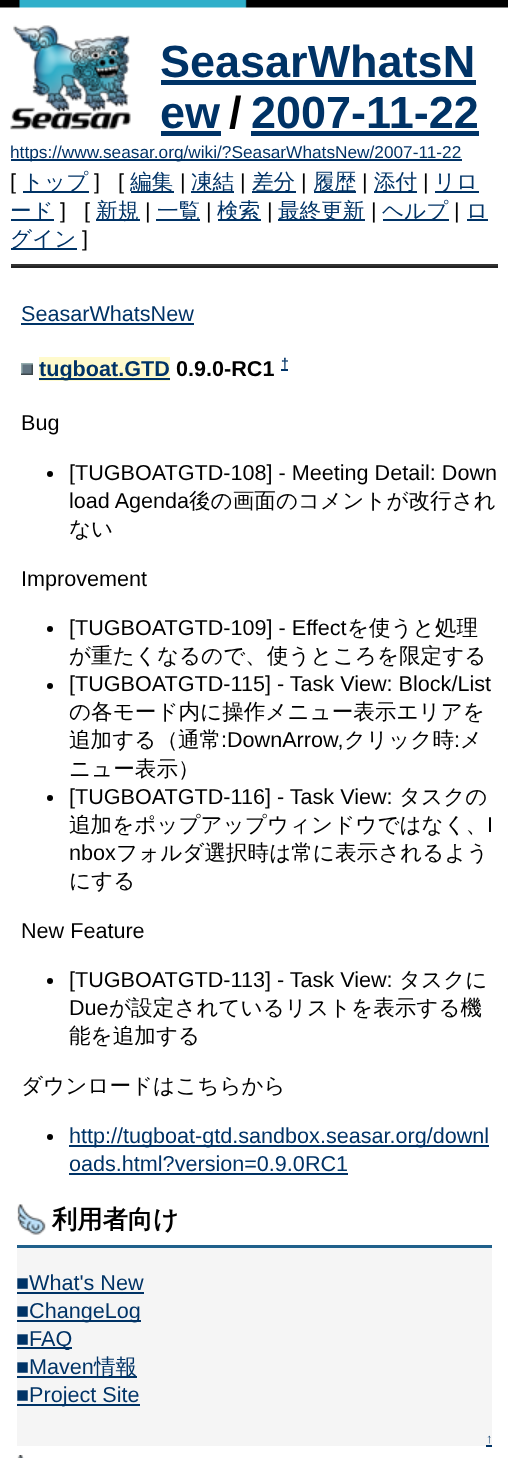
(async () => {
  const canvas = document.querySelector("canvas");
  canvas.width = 508;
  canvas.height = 1458;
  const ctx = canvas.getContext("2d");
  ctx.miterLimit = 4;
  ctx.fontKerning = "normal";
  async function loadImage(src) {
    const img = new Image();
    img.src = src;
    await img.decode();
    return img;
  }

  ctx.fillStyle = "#ffffff";
  ctx.fillRect(0, 0, 508, 1458);
  ctx.drawImage(await loadImage("img/1.png"), 0, 0, 508, 8);
  ctx.drawImage(await loadImage("img/2.png"), 10, 25, 121, 105);
  for (const [x, y, w, h, color] of [
    [161, 80, 315, 5, "#003366"],
    [161, 131, 60, 5, "#003366"],
    [251, 131, 228, 5, "#003366"],
    [11, 159, 451, 2, "#003366"],
    [23, 191, 66, 2, "#003366"],
    [131, 191, 43, 2, "#003366"],
    [191, 191, 43, 2, "#003366"],
    [252, 191, 44, 2, "#003366"],
    [314, 191, 42, 2, "#003366"],
    [374, 191, 43, 2, "#003366"],
    [435, 191, 44, 2, "#003366"],
    [11, 219, 43, 2, "#003366"],
    [96, 219, 44, 2, "#003366"],
    [156, 219, 44, 2, "#003366"],
    [218, 219, 43, 2, "#003366"],
    [278, 219, 87, 2, "#003366"],
    [383, 219, 66, 2, "#003366"],
    [467, 219, 21, 2, "#003366"],
    [11, 248, 66, 2, "#003366"],
    [11, 264, 487, 2, "#333333"],
    [11, 266, 487, 2, "#222222"],
    [21, 323, 173, 2, "#003366"],
  ]) {
    ctx.fillStyle = color;
    ctx.fillRect(x, y, w, h);
  }
  ctx.drawImage(await loadImage("img/3.png"), 21, 363, 12, 12);
  for (const [x, y, w, h, color] of [
    [39, 357, 131, 24, "#fffacc"],
    [39, 378, 131, 2, "#003366"],
    [281, 369, 7, 2, "#003366"],
  ]) {
    ctx.fillStyle = color;
    ctx.fillRect(x, y, w, h);
  }
  ctx.fillStyle = "#000000";
  ctx.beginPath();
  ctx.arc(50, 474, 3, 0, Math.PI * 2);
  ctx.fill();
  ctx.beginPath();
  ctx.arc(50, 629, 3, 0, Math.PI * 2);
  ctx.fill();
  ctx.beginPath();
  ctx.arc(50, 686, 3, 0, Math.PI * 2);
  ctx.fill();
  ctx.beginPath();
  ctx.arc(50, 798, 3, 0, Math.PI * 2);
  ctx.fill();
  ctx.beginPath();
  ctx.arc(50, 981, 3, 0, Math.PI * 2);
  ctx.fill();
  ctx.beginPath();
  ctx.arc(50, 1137, 3, 0, Math.PI * 2);
  ctx.fill();
  for (const [x, y, w, h, color] of [
    [69, 1145, 420, 2, "#003366"],
    [69, 1173, 279, 2, "#003366"],
    [17, 1248, 475, 198, "#f5f5f5"],
  ]) {
    ctx.fillStyle = color;
    ctx.fillRect(x, y, w, h);
  }
  ctx.drawImage(await loadImage("img/4.png"), 17, 1204, 29, 31);
  for (const [x, y, w, h, color] of [
    [17, 1245, 475, 3, "#20608b"],
    [17, 1292, 127, 2, "#003366"],
    [17, 1320, 124, 2, "#003366"],
    [17, 1347, 55, 2, "#003366"],
    [17, 1376, 120, 2, "#003366"],
    [17, 1404, 123, 2, "#003366"],
    [486, 1445, 6, 2, "#003366"],
  ]) {
    ctx.fillStyle = color;
    ctx.fillRect(x, y, w, h);
  }
  ctx.drawImage(await loadImage("img/5.png"), 17, 1455, 7, 3);
  ctx.font = "bold 45px Liberation Sans";
  ctx.fillText("SeasarWhatsN", 160, 77);
  ctx.fillText("ew", 160, 128);
  ctx.fillStyle = "#000000";
  ctx.fillText("/", 229, 128);
  ctx.fillStyle = "#003366";
  ctx.fillText("2007-11-22", 251, 128);
  ctx.font = "17.25px Liberation Sans";
  ctx.fillText("https://www.seasar.org/wiki/?SeasarWhatsNew/2007-11-22", 10, 158);
  ctx.font = "21.6px Liberation Sans";
  ctx.fillStyle = "#000000";
  ctx.fillText("[", 10, 189);
  ctx.font = "500 21.6px WenQuanYi Zen Hei";
  ctx.fillStyle = "#003366";
  ctx.fillText("トップ", 22, 189);
  ctx.font = "21.6px Liberation Sans";
  ctx.fillStyle = "#000000";
  ctx.fillText("]", 94, 189);
  ctx.fillText("[", 118, 189);
  ctx.font = "500 21.6px WenQuanYi Zen Hei";
  ctx.fillStyle = "#003366";
  ctx.fillText("編集", 130, 189);
  ctx.font = "21.6px Liberation Sans";
  ctx.fillStyle = "#000000";
  ctx.fillText("|", 180, 189);
  ctx.font = "500 21.6px WenQuanYi Zen Hei";
  ctx.fillStyle = "#003366";
  ctx.fillText("凍結", 191, 189);
  ctx.font = "21.6px Liberation Sans";
  ctx.fillStyle = "#000000";
  ctx.fillText("|", 240, 189);
  ctx.font = "500 21.6px WenQuanYi Zen Hei";
  ctx.fillStyle = "#003366";
  ctx.fillText("差分", 252, 189);
  ctx.font = "21.6px Liberation Sans";
  ctx.fillStyle = "#000000";
  ctx.fillText("|", 301, 189);
  ctx.font = "500 21.6px WenQuanYi Zen Hei";
  ctx.fillStyle = "#003366";
  ctx.fillText("履歴", 313, 189);
  ctx.font = "21.6px Liberation Sans";
  ctx.fillStyle = "#000000";
  ctx.fillText("|", 362, 189);
  ctx.font = "500 21.6px WenQuanYi Zen Hei";
  ctx.fillStyle = "#003366";
  ctx.fillText("添付", 374, 189);
  ctx.font = "21.6px Liberation Sans";
  ctx.fillStyle = "#000000";
  ctx.fillText("|", 423, 189);
  ctx.font = "500 21.6px WenQuanYi Zen Hei";
  ctx.fillStyle = "#003366";
  ctx.fillText("リロ", 434, 189);
  ctx.fillText("ード", 10, 218);
  ctx.font = "21.6px Liberation Sans";
  ctx.fillStyle = "#000000";
  ctx.fillText("]", 60, 218);
  ctx.fillText("[", 84, 218);
  ctx.font = "500 21.6px WenQuanYi Zen Hei";
  ctx.fillStyle = "#003366";
  ctx.fillText("新規", 96, 218);
  ctx.font = "21.6px Liberation Sans";
  ctx.fillStyle = "#000000";
  ctx.fillText("|", 145, 218);
  ctx.font = "500 21.6px WenQuanYi Zen Hei";
  ctx.fillStyle = "#003366";
  ctx.fillText("一覧", 157, 218);
  ctx.font = "21.6px Liberation Sans";
  ctx.fillStyle = "#000000";
  ctx.fillText("|", 206, 218);
  ctx.font = "500 21.6px WenQuanYi Zen Hei";
  ctx.fillStyle = "#003366";
  ctx.fillText("検索", 217, 218);
  ctx.font = "21.6px Liberation Sans";
  ctx.fillStyle = "#000000";
  ctx.fillText("|", 267, 218);
  ctx.font = "500 21.6px WenQuanYi Zen Hei";
  ctx.fillStyle = "#003366";
  ctx.fillText("最終更新", 278, 218);
  ctx.font = "21.6px Liberation Sans";
  ctx.fillStyle = "#000000";
  ctx.fillText("|", 371, 218);
  ctx.font = "500 21.6px WenQuanYi Zen Hei";
  ctx.fillStyle = "#003366";
  ctx.fillText("ヘルプ", 382, 218);
  ctx.font = "21.6px Liberation Sans";
  ctx.fillStyle = "#000000";
  ctx.fillText("|", 454, 218);
  ctx.font = "500 21.6px WenQuanYi Zen Hei";
  ctx.fillStyle = "#003366";
  ctx.fillText("ロ", 466, 218);
  ctx.fillText("グイン", 10, 246);
  ctx.font = "21.6px Liberation Sans";
  ctx.fillStyle = "#000000";
  ctx.fillText("]", 82, 246);
  ctx.fillStyle = "#003366";
  ctx.fillText("SeasarWhatsNew", 21, 321);
  ctx.font = "bold 21.6px Liberation Sans";
  ctx.fillText("tugboat.GTD", 39, 376);
  ctx.fillStyle = "#000000";
  ctx.fillText("0.9.0-RC1", 176, 376);
  ctx.font = "bold 14px Liberation Sans";
  ctx.fillStyle = "#003366";
  ctx.fillText("†", 281, 368);
  ctx.font = "21.6px Liberation Sans";
  ctx.fillStyle = "#000000";
  for (const [text, x, y] of [
    ["Bug", 21, 430],
    ["[TUGBOATGTD-108] - Meeting Detail: Down", 69, 480],
    ["load Agenda", 69, 508],
  ]) {
    ctx.fillText(text, x, y);
  }
  ctx.font = "500 21.6px WenQuanYi Zen Hei";
  ctx.fillText("後の画面のコメントが改行され", 189, 508);
  ctx.fillText("ない", 69, 536);
  ctx.font = "21.6px Liberation Sans";
  ctx.fillText("Improvement", 21, 586);
  ctx.fillText("[TUGBOATGTD-109] - Effect", 69, 635);
  ctx.font = "500 21.6px WenQuanYi Zen Hei";
  ctx.fillText("を使うと処理", 347, 635);
  ctx.fillText("が重たくなるので、使うところを限定する", 69, 663);
  ctx.font = "21.6px Liberation Sans";
  ctx.fillText("[TUGBOATGTD-115] - Task View: Block/List", 69, 691);
  ctx.font = "500 21.6px WenQuanYi Zen Hei";
  ctx.fillText("の各モード内に操作メニュー表示エリアを", 69, 719);
  ctx.fillText("追加する（通常", 69, 747);
  ctx.font = "21.6px Liberation Sans";
  ctx.fillText(":DownArrow,", 221, 747);
  ctx.font = "500 21.6px WenQuanYi Zen Hei";
  ctx.fillText("クリック時", 344, 747);
  ctx.font = "21.6px Liberation Sans";
  ctx.fillText(":", 454, 747);
  ctx.font = "500 21.6px WenQuanYi Zen Hei";
  ctx.fillText("メ", 460, 747);
  ctx.fillText("ニュー表示）", 69, 776);
  ctx.font = "21.6px Liberation Sans";
  ctx.fillText("[TUGBOATGTD-116] - Task View:", 69, 804);
  ctx.font = "500 21.6px WenQuanYi Zen Hei";
  ctx.fillText("タスクの", 399, 804);
  ctx.fillText("追加をポップアップウィンドウではなく、", 69, 832);
  ctx.font = "21.6px Liberation Sans";
  ctx.fillText("I", 487, 832);
  ctx.fillText("nbox", 69, 860);
  ctx.font = "500 21.6px WenQuanYi Zen Hei";
  ctx.fillText("フォルダ選択時は常に表示されるよう", 116, 860);
  ctx.fillText("にする", 69, 888);
  ctx.font = "21.6px Liberation Sans";
  ctx.fillText("New Feature", 21, 938);
  ctx.fillText("[TUGBOATGTD-113] - Task View:", 69, 987);
  ctx.font = "500 21.6px WenQuanYi Zen Hei";
  ctx.fillText("タスクに", 399, 987);
  ctx.font = "21.6px Liberation Sans";
  ctx.fillText("Due", 69, 1015);
  ctx.font = "500 21.6px WenQuanYi Zen Hei";
  for (const [text, x, y] of [
    ["が設定されているリストを表示する機", 109, 1015],
    ["能を追加する", 69, 1043],
    ["ダウンロードはこちらから", 21, 1093],
  ]) {
    ctx.fillText(text, x, y);
  }
  ctx.font = "21.6px Liberation Sans";
  ctx.fillStyle = "#003366";
  ctx.fillText("http://tugboat-gtd.sandbox.seasar.org/downl", 69, 1143);
  ctx.fillText("oads.html?version=0.9.0RC1", 69, 1171);
  ctx.font = "bold 25.25px WenQuanYi Zen Hei";
  ctx.fillStyle = "#000000";
  ctx.fillText("利用者向け", 52, 1228);
  ctx.font = "21.6px Liberation Sans";
  ctx.fillStyle = "#003366";
  for (const [text, x, y] of [
    ["■What's New", 16, 1290],
    ["■ChangeLog", 16, 1318],
    ["■FAQ", 16, 1346],
    ["■Maven", 16, 1374],
  ]) {
    ctx.fillText(text, x, y);
  }
  ctx.font = "500 21.6px WenQuanYi Zen Hei";
  ctx.fillText("情報", 94, 1374);
  ctx.font = "21.6px Liberation Sans";
  ctx.fillText("■Project Site", 16, 1402);
  ctx.font = "13px Liberation Sans";
  ctx.fillText("↑", 486, 1443);
})();
